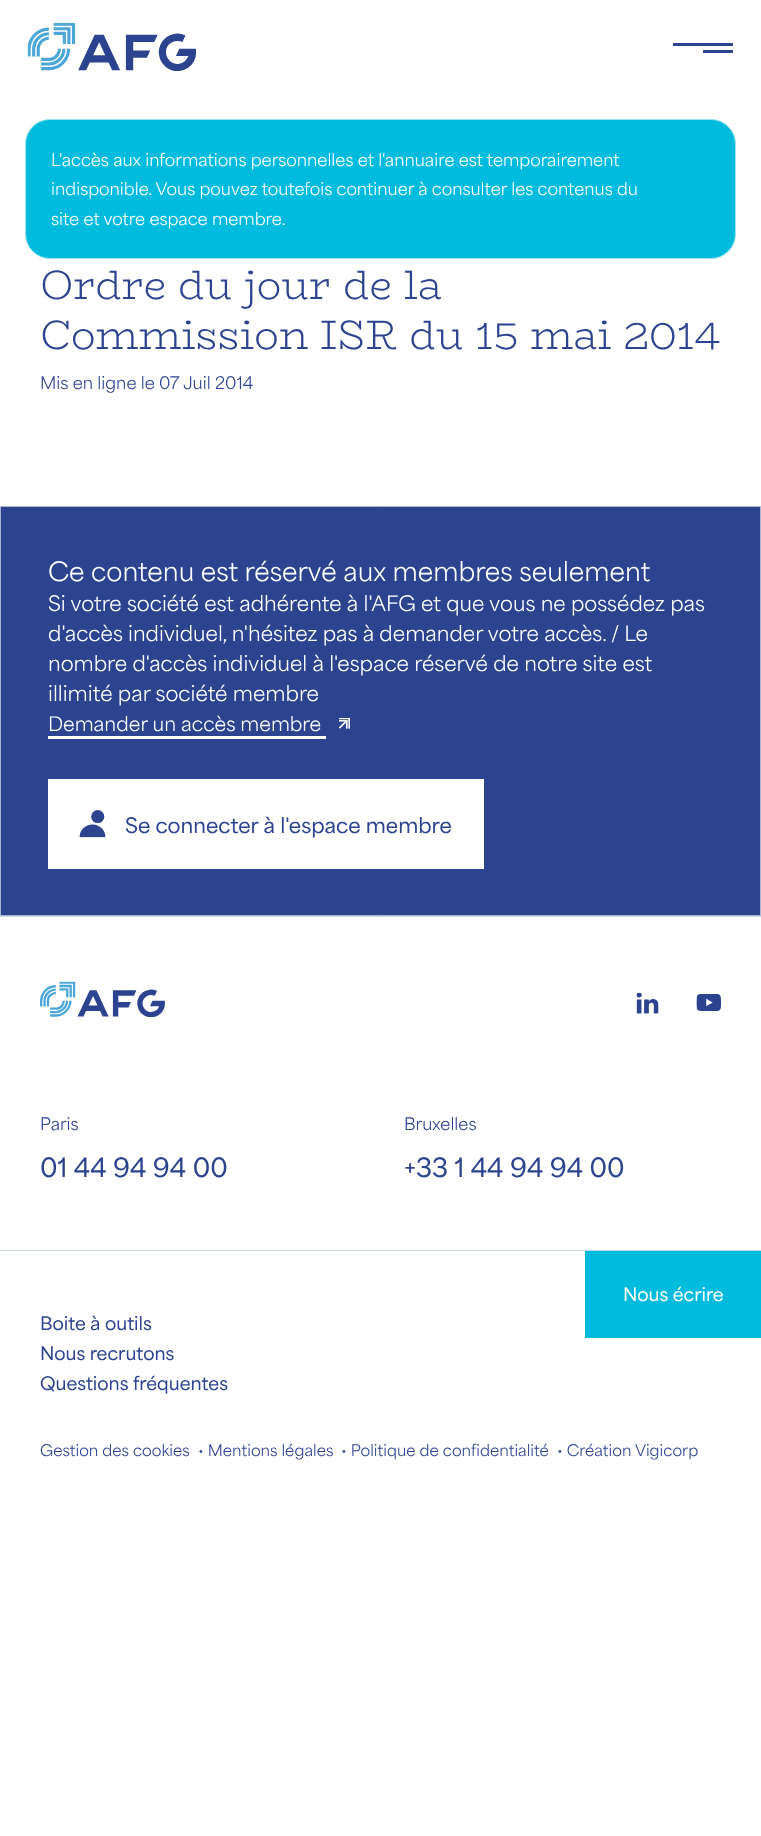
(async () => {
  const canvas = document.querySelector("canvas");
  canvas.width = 761;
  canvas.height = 1836;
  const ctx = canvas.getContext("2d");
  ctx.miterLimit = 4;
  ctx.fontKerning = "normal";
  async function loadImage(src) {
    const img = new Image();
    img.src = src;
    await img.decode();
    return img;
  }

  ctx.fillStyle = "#ffffff";
  ctx.fillRect(0, 0, 761, 1836);
  ctx.drawImage(await loadImage("img/1.png"), 27, 22, 169, 49);
  ctx.fillStyle = "#2c4390";
  ctx.fillRect(673, 43, 60, 3);
  ctx.fillRect(703, 50, 30, 3);
  ctx.fillStyle = "#00bbdd";
  ctx.beginPath();
  ctx.roundRect(25.5, 119.5, 710, 139, 24.5);
  ctx.fill();
  ctx.strokeStyle = "#99e4f1";
  ctx.stroke();
  ctx.fillStyle = "#2c4390";
  ctx.beginPath();
  ctx.rect(0.5, 506.5, 760, 409);
  ctx.fill();
  ctx.strokeStyle = "#abb4d3";
  ctx.stroke();
  ctx.fillStyle = "#ffffff";
  ctx.fillRect(48, 736, 278, 3);
  ctx.drawImage(await loadImage("img/2.png"), 339, 718, 11, 11);
  ctx.fillRect(48, 779, 436, 90);
  ctx.drawImage(await loadImage("img/3.png"), 79, 810, 27, 28);
  ctx.fillStyle = "#c5d6ea";
  ctx.fillRect(0, 916, 761, 1);
  ctx.drawImage(await loadImage("img/4.png"), 40, 981, 125, 37);
  ctx.drawImage(await loadImage("img/5.png"), 636, 992, 23, 22);
  ctx.drawImage(await loadImage("img/6.png"), 696, 994, 25, 17);
  ctx.fillRect(0, 1250, 761, 1);
  ctx.fillStyle = "#00bbdd";
  ctx.fillRect(585, 1251, 176, 87);
  ctx.font = "16.25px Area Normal";
  ctx.fillStyle = "#ffffff";
  for (const [text, x, y] of [
    ["L'accès aux informations personnelles et l'annuaire est temporairement", 51, 166],
    ["indisponible. Vous pouvez toutefois continuer à consulter les contenus du", 51, 195],
    ["site et votre espace membre.", 51, 225],
  ]) {
    ctx.fillText(text, x, y);
  }
  ctx.font = "300 41.25px BioRhyme";
  ctx.fillStyle = "#2c4390";
  ctx.fillText("Ordre du jour de la", 40, 299);
  ctx.fillText("Commission ISR du 15 mai 2014", 40, 349);
  ctx.font = "16.25px Area Normal";
  ctx.fillText("Mis en ligne le 07 Juil 2014", 40, 389);
  ctx.font = "25px Area Normal";
  ctx.fillStyle = "#ffffff";
  ctx.fillText("Ce contenu est réservé aux membres seulement", 48, 581);
  ctx.font = "20px Area Normal";
  for (const [text, x, y] of [
    ["Si votre société est adhérente à l'AFG et que vous ne possédez pas", 48, 611],
    ["d'accès individuel, n'hésitez pas à demander votre accès. / Le", 48, 641],
    ["nombre d'accès individuel à l'espace réservé de notre site est", 48, 671],
    ["illimité par société membre", 48, 701],
  ]) {
    ctx.fillText(text, x, y);
  }
  ctx.font = "18.75px Area Normal";
  ctx.fillText("Demander un accès membre", 48, 731);
  ctx.font = "600 20px Area Normal";
  ctx.fillStyle = "#2c4390";
  ctx.fillText("Se connecter à l'espace membre", 125, 833);
  ctx.font = "16.25px Area Normal";
  ctx.fillText("Paris", 40, 1130);
  ctx.font = "600 25px Area Normal";
  ctx.fillText("01 44 94 94 00", 40, 1177);
  ctx.font = "16.25px Area Normal";
  ctx.fillText("Bruxelles", 404, 1130);
  ctx.font = "600 25px Area Normal";
  ctx.fillText("+33 1 44 94 94 00", 404, 1177);
  ctx.font = "600 17.5px Area Normal";
  ctx.fillStyle = "#ffffff";
  ctx.fillText("Nous écrire", 623, 1301);
  ctx.fillStyle = "#2c4390";
  for (const [text, x, y] of [
    ["Boite à outils", 40, 1330],
    ["Nous recrutons", 40, 1360],
    ["Questions fréquentes", 40, 1390],
  ]) {
    ctx.fillText(text, x, y);
  }
  ctx.font = "15px Area Normal";
  for (const [text, x, y] of [
    ["Gestion des cookies", 40, 1456],
    ["• Mentions légales", 198, 1456],
    ["• Politique de confidentialité", 341, 1456],
    ["• Création Vigicorp", 557, 1456],
  ]) {
    ctx.fillText(text, x, y);
  }
})();
